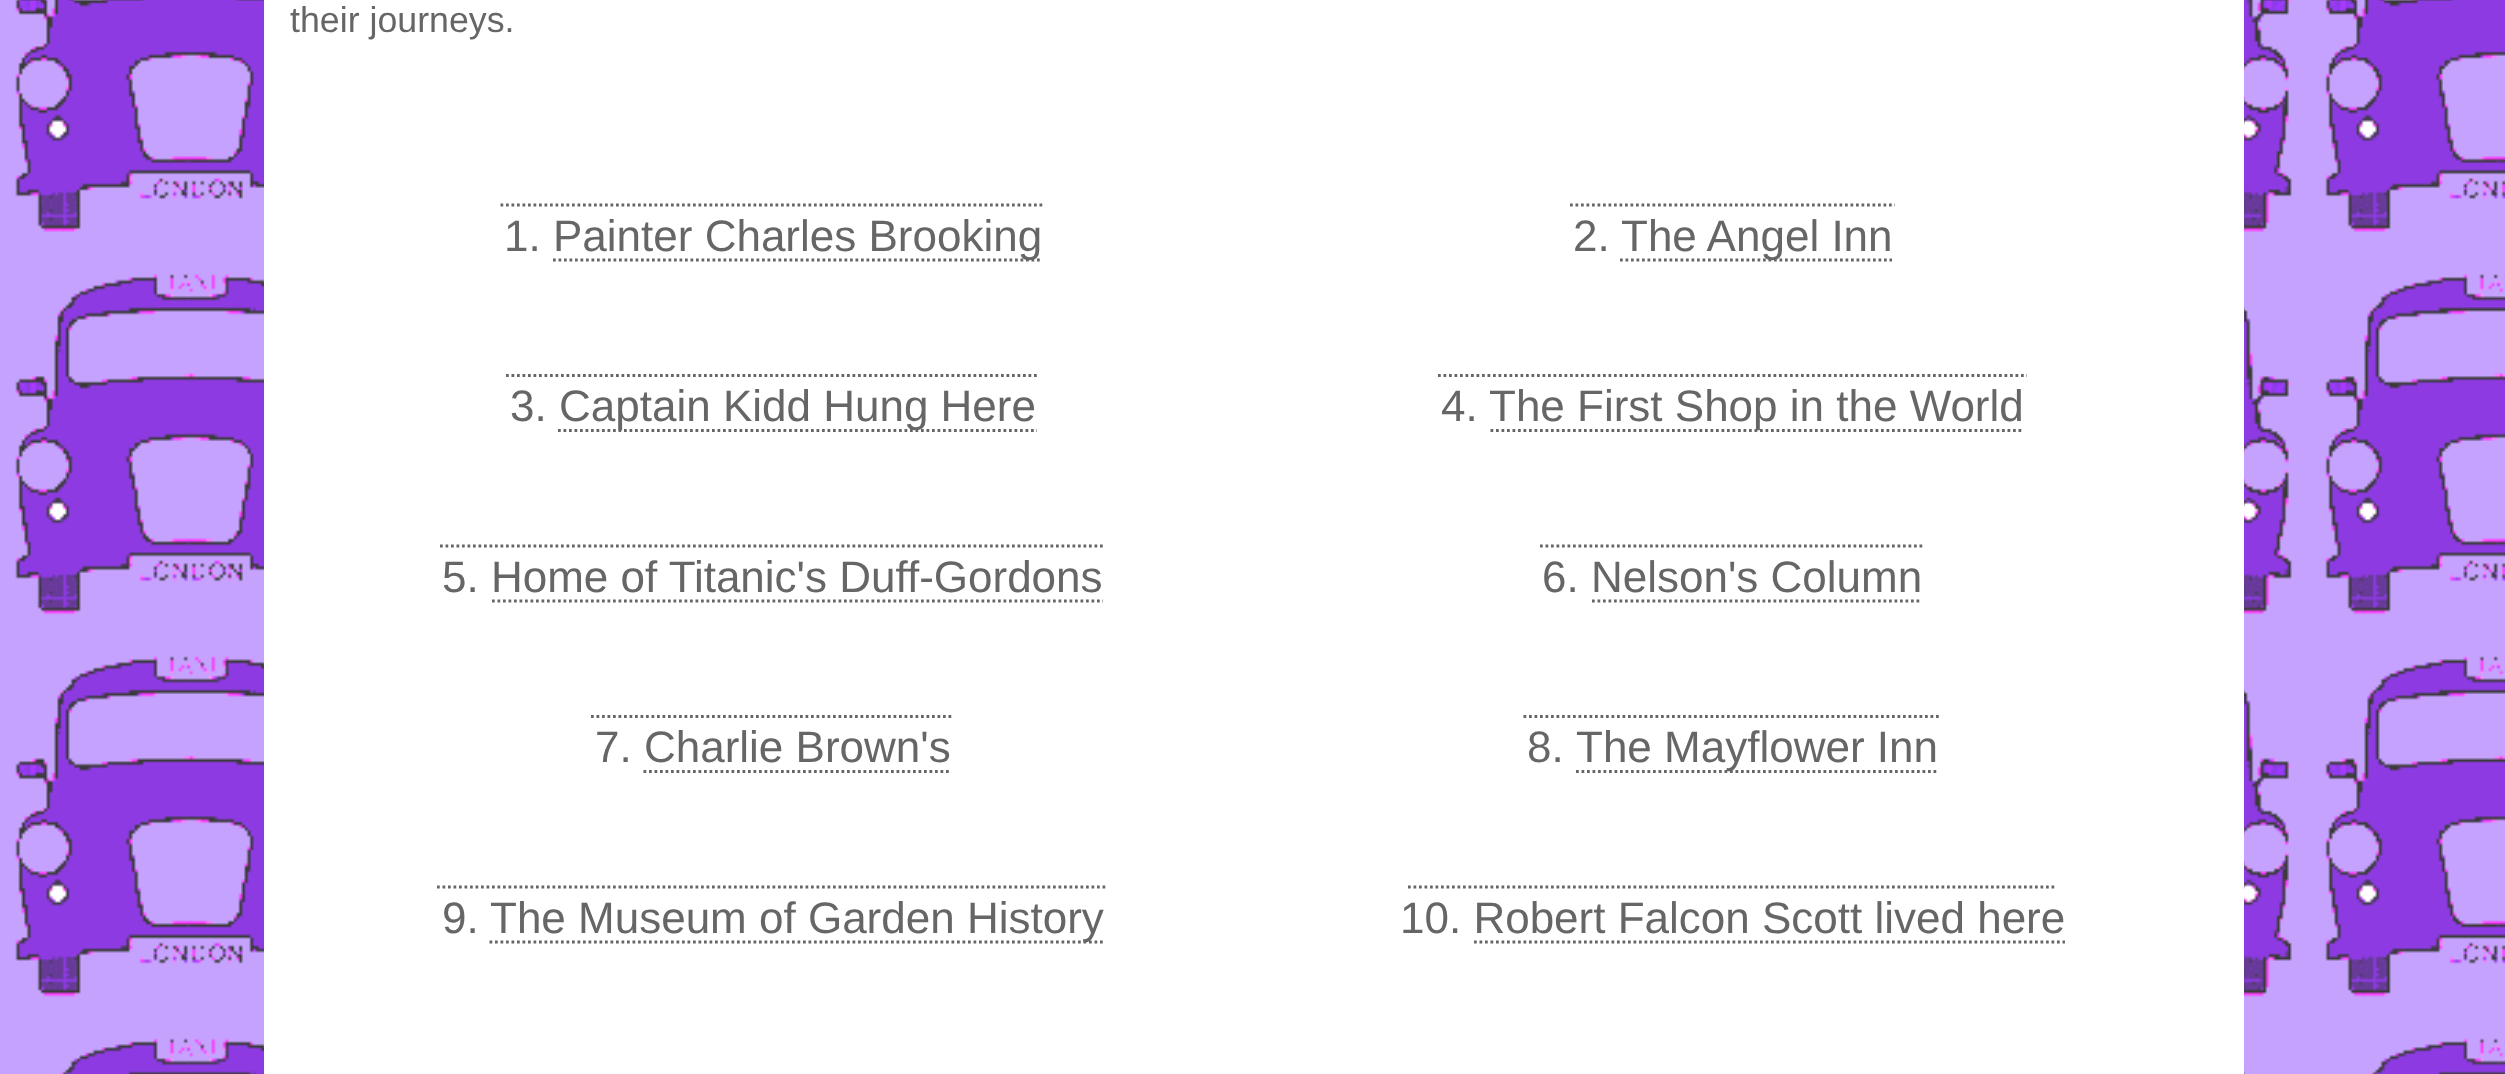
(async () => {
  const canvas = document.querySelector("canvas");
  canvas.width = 2505;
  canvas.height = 1074;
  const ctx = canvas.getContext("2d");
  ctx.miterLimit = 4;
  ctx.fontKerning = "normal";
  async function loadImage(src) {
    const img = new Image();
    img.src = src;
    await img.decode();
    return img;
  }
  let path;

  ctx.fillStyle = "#ffffff";
  ctx.fillRect(0, 0, 2505, 1074);
  ctx.drawImage(await loadImage("img/1.png"), 0, 0, 2505, 1074);
  ctx.fillRect(264, 0, 1980, 1074);
  path = new Path2D("M500.5 205H1045");
  ctx.strokeStyle = "#666666";
  ctx.lineWidth = 2.8;
  ctx.setLineDash([2.75, 2.75]);
  ctx.stroke(path);
  path = new Path2D("M553 260H1042");
  ctx.stroke(path);
  path = new Path2D("M1570 205H1895");
  ctx.stroke(path);
  path = new Path2D("M1620 260H1892");
  ctx.stroke(path);
  path = new Path2D("M506 375.5H1039.5");
  ctx.stroke(path);
  path = new Path2D("M558 430.5H1037");
  ctx.stroke(path);
  path = new Path2D("M1438 375.5H2027");
  ctx.stroke(path);
  path = new Path2D("M1490.5 430.5H2024");
  ctx.stroke(path);
  path = new Path2D("M440 546H1105.5");
  ctx.stroke(path);
  path = new Path2D("M492 601H1103");
  ctx.stroke(path);
  path = new Path2D("M1540 546H1925");
  ctx.stroke(path);
  path = new Path2D("M1592 601H1922");
  ctx.stroke(path);
  path = new Path2D("M591 716.5H954");
  ctx.stroke(path);
  path = new Path2D("M643.5 771.5H951.5");
  ctx.stroke(path);
  path = new Path2D("M1523.5 716.5H1941.5");
  ctx.stroke(path);
  path = new Path2D("M1576 771.5H1939");
  ctx.stroke(path);
  path = new Path2D("M437 887H1108");
  ctx.stroke(path);
  path = new Path2D("M489.5 942H1103");
  ctx.stroke(path);
  path = new Path2D("M1408 887H2057");
  ctx.stroke(path);
  path = new Path2D("M1474 942H2065");
  ctx.stroke(path);
  ctx.font = "35.75px Liberation Sans";
  ctx.fillStyle = "#666666";
  ctx.fillText("their journeys.", 290, 32);
  ctx.font = "44px Liberation Sans";
  for (const [text, x, y] of [
    ["1.", 504, 251],
    ["Painter Charles Brooking", 553, 251],
    ["2.", 1573, 251],
    ["The Angel Inn", 1621, 251],
    ["3.", 510, 421],
    ["Captain Kidd Hung Here", 559, 421],
    ["4.", 1441, 421],
    ["The First Shop in the World", 1489, 421],
    ["5. Home of Titanic's Duff-Gordons", 442, 592],
    ["6. Nelson's Column", 1542, 592],
    ["7. Charlie Brown's", 595, 762],
    ["8.", 1527, 762],
    ["The Mayflower Inn", 1576, 762],
    ["9.", 442, 933],
    ["The Museum of Garden History", 490, 933],
    ["10. Robert Falcon Scott lived here", 1400, 933],
  ]) {
    ctx.fillText(text, x, y);
  }
})();
